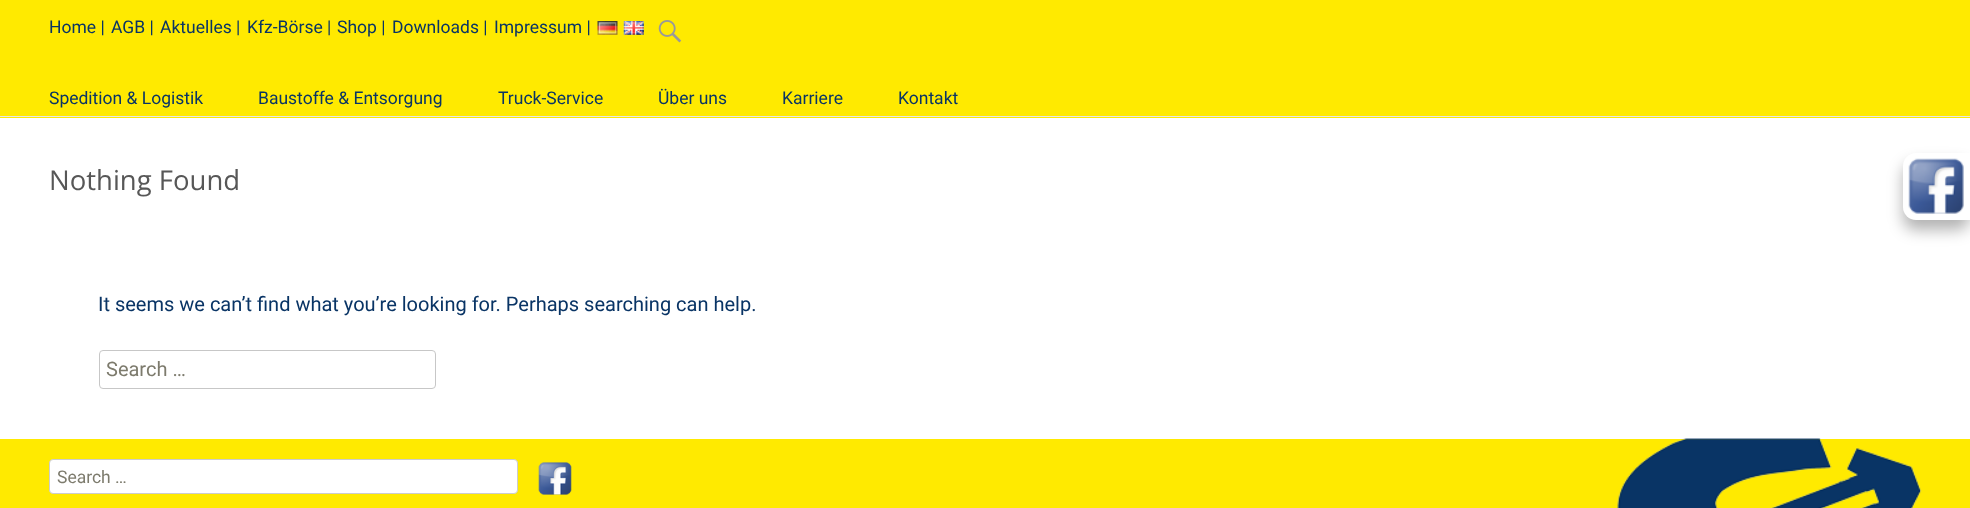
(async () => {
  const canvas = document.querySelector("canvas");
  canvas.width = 1970;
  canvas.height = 508;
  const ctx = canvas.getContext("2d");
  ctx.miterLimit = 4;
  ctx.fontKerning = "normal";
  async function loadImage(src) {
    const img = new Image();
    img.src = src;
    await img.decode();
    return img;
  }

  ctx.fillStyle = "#ffffff";
  ctx.fillRect(0, 0, 1970, 508);
  ctx.fillStyle = "#ffea00";
  ctx.fillRect(0, 0, 1970, 118);
  ctx.drawImage(await loadImage("img/1.png"), 597, 21, 21, 14);
  ctx.drawImage(await loadImage("img/2.png"), 623, 21, 21, 14);
  ctx.drawImage(await loadImage("img/3.png"), 658, 20, 24, 23);
  ctx.fillStyle = "#e7e7e7";
  ctx.fillRect(0, 116, 1970, 1);
  ctx.beginPath();
  ctx.roundRect(99.5, 350.5, 336, 38, 3.5);
  ctx.strokeStyle = "#c7c7c7";
  ctx.stroke();
  ctx.fillStyle = "#ffea00";
  ctx.fillRect(0, 439, 1970, 69);
  ctx.drawImage(await loadImage("img/4.png"), 1617, 438, 305, 70);
  ctx.fillStyle = "#ffffff";
  ctx.beginPath();
  ctx.roundRect(49.5, 459.5, 468, 34, 3.5);
  ctx.fill();
  ctx.strokeStyle = "#cccccc";
  ctx.stroke();
  ctx.drawImage(await loadImage("img/5.png"), 538, 462, 34, 33);
  ctx.fillStyle = "rgba(0, 0, 0, 0.3)";
  ctx.filter = "blur(7.5px)";
  ctx.beginPath();
  ctx.roundRect(1903, 163, 67, 67, 13);
  ctx.fill();
  ctx.filter = "none";
  ctx.fillStyle = "#ffffff";
  ctx.beginPath();
  ctx.roundRect(1903, 153, 67, 67, [13, 0, 0, 13]);
  ctx.fill();
  ctx.drawImage(await loadImage("img/6.png"), 1908, 158, 56, 56);
  ctx.font = "17.5px Roboto";
  ctx.fillStyle = "#093465";
  for (const [text, x, y] of [
    ["Home |", 49, 33],
    ["AGB |", 111, 33],
    ["Aktuelles |", 160, 33],
    ["Kfz-Börse |", 247, 33],
    ["Shop |", 337, 33],
    ["Downloads |", 392, 33],
    ["Impressum |", 494, 33],
    ["Spedition & Logistik", 49, 104],
    ["Baustoffe & Entsorgung", 258, 104],
    ["Truck-Service", 498, 104],
    ["Über uns", 658, 104],
    ["Karriere", 782, 104],
    ["Kontakt", 898, 104],
  ]) {
    ctx.fillText(text, x, y);
  }
  ctx.font = "27.5px Open Sans";
  ctx.fillStyle = "#575757";
  ctx.fillText("Nothing Found", 49, 190);
  ctx.font = "20px Roboto";
  ctx.fillStyle = "#093465";
  ctx.fillText("It seems we can’t find what you’re looking for. Perhaps searching can help.", 98, 311);
  ctx.fillStyle = "#7d7b6d";
  ctx.fillText("Search …", 106, 376);
  ctx.font = "17.5px Roboto";
  ctx.fillText("Search …", 57, 483);
})();
